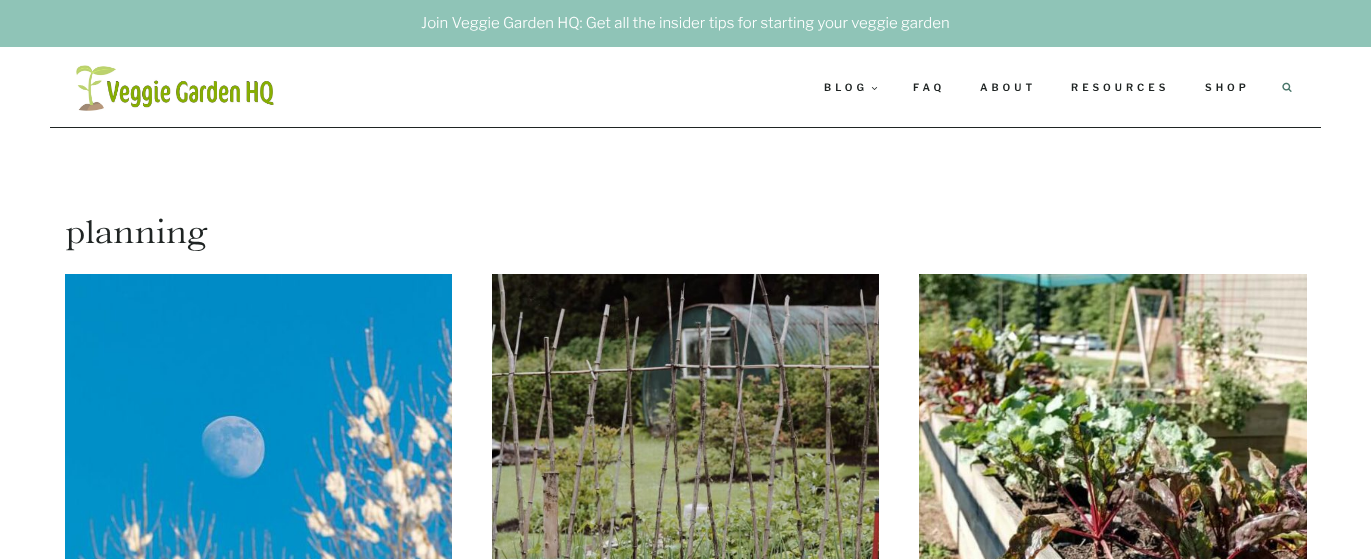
(async () => {
  const canvas = document.querySelector("canvas");
  canvas.width = 1371;
  canvas.height = 559;
  const ctx = canvas.getContext("2d");
  ctx.miterLimit = 4;
  ctx.fontKerning = "normal";
  async function loadImage(src) {
    const img = new Image();
    img.src = src;
    await img.decode();
    return img;
  }

  ctx.fillStyle = "#ffffff";
  ctx.fillRect(0, 0, 1371, 559);
  ctx.fillStyle = "#8fc4b7";
  ctx.fillRect(0, 0, 1371, 47);
  ctx.fillStyle = "#1f2423";
  ctx.fillRect(50, 127, 1271, 1);
  ctx.drawImage(await loadImage("img/1.png"), 76, 65, 198, 46);
  ctx.drawImage(await loadImage("img/2.png"), 871, 87, 7, 3);
  ctx.drawImage(await loadImage("img/3.png"), 1282, 82, 10, 10);
  ctx.drawImage(await loadImage("img/4.png"), 65, 274, 387, 285);
  ctx.drawImage(await loadImage("img/5.png"), 492, 274, 387, 285);
  ctx.drawImage(await loadImage("img/6.png"), 919, 274, 388, 285);
  ctx.font = "300 15px Libre Franklin";
  ctx.fillStyle = "#ffffff";
  ctx.fillText("Join Veggie Garden HQ: Get all the insider tips for starting your veggie garden", 421, 28);
  ctx.letterSpacing = "4px";
  ctx.font = "600 10px Libre Franklin";
  ctx.fillStyle = "#1f2423";
  for (const [text, x, y] of [
    ["BLOG", 824, 91],
    ["FAQ", 913, 91],
    ["ABOUT", 980, 91],
    ["RESOURCES", 1071, 91],
    ["SHOP", 1205, 91],
  ]) {
    ctx.fillText(text, x, y);
  }
  ctx.letterSpacing = "0px";
  ctx.font = "32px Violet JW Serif";
  ctx.fillText("planning", 65, 243);
})();
